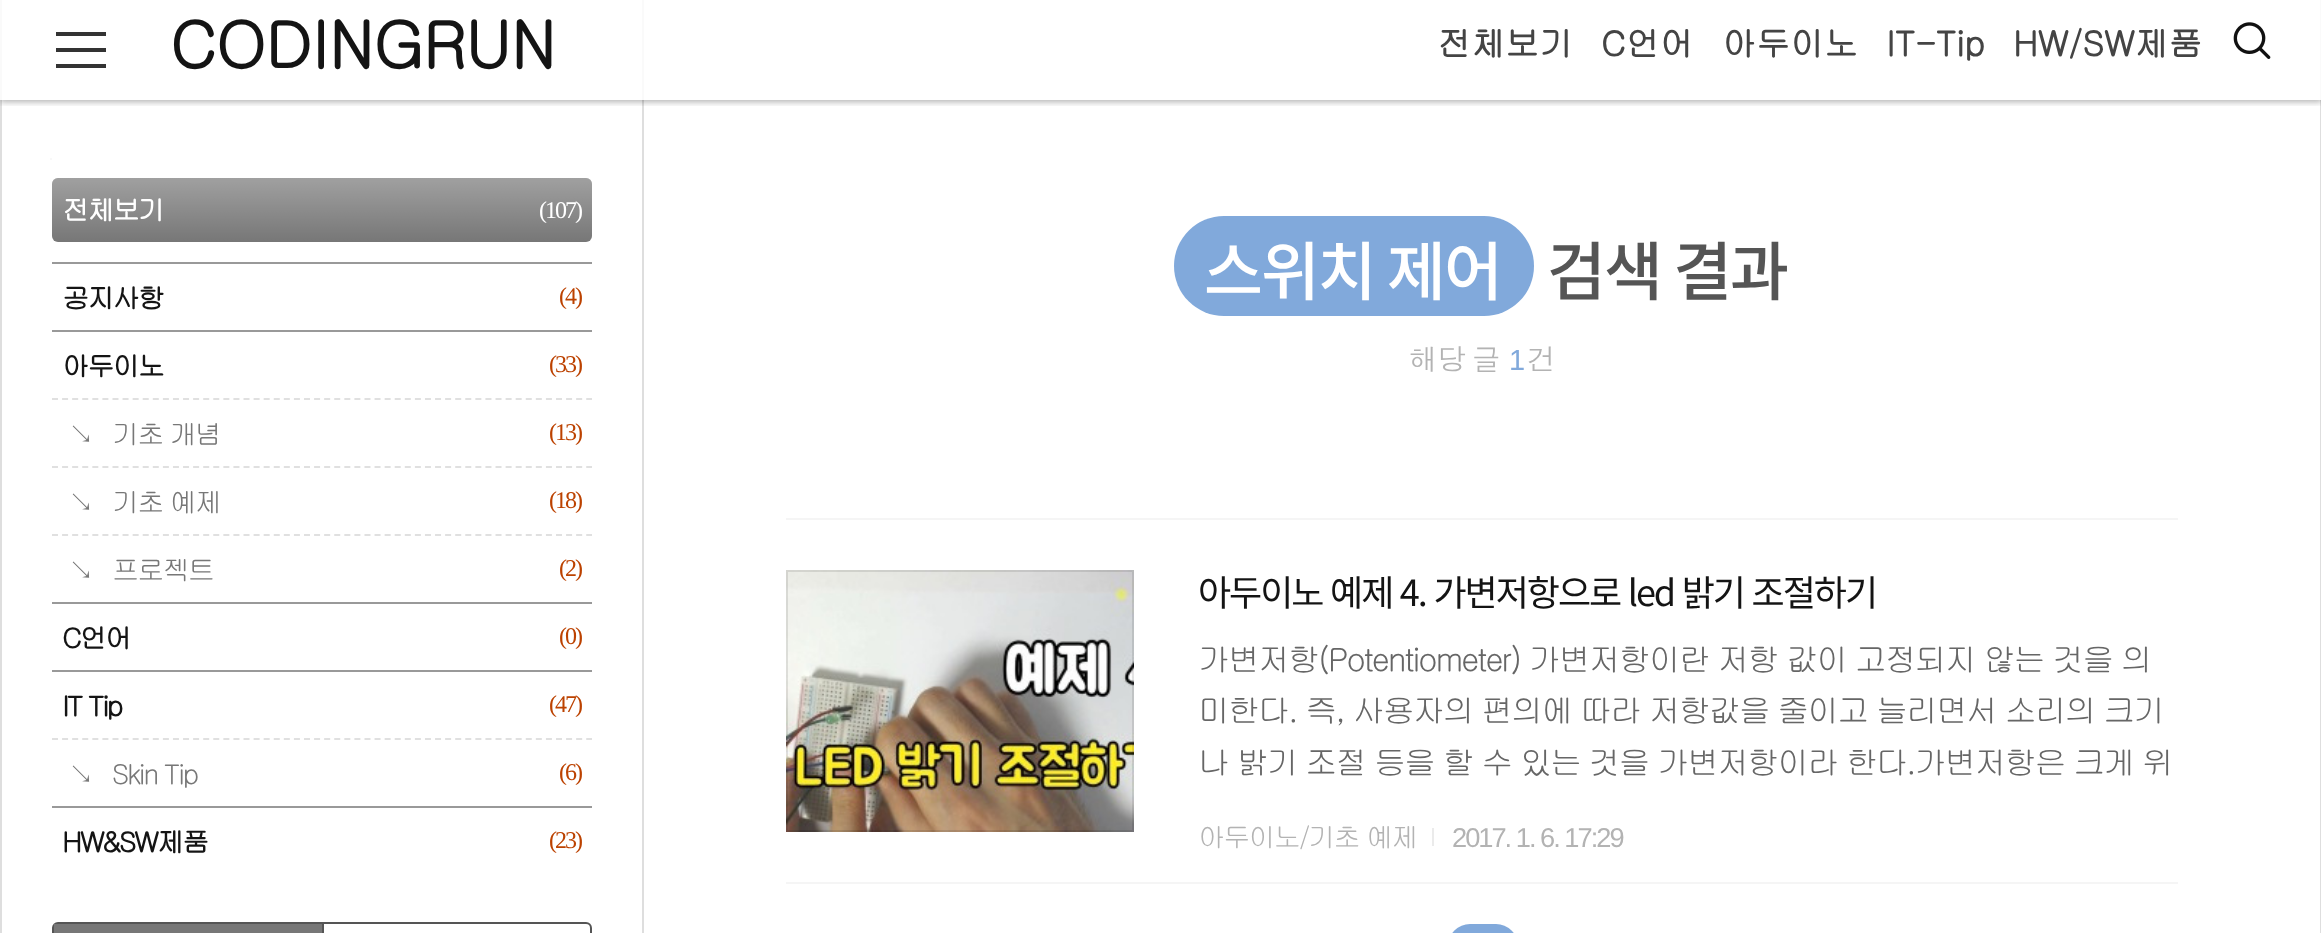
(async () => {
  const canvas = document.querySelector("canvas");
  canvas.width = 2321;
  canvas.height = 933;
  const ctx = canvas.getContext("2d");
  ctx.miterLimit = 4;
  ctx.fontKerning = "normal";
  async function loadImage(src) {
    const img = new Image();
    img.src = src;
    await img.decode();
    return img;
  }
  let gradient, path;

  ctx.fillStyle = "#ffffff";
  ctx.fillRect(0, 0, 2321, 933);
  for (const [x, y, w, h, color] of [
    [2320, 100, 1, 833, "#dedede"],
    [2320, 0, 1, 100, "#fafafa"],
    [0, 100, 2, 833, "#dedede"],
    [0, 0, 2, 100, "#fafafa"],
    [642, 100, 2, 833, "#dedede"],
    [642, 0, 2, 100, "#fafafa"],
  ]) {
    ctx.fillStyle = color;
    ctx.fillRect(x, y, w, h);
  }
  ctx.save();
  ctx.beginPath();
  ctx.rect(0, 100, 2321, 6);
  ctx.clip();
  ctx.fillStyle = "rgba(0, 0, 0, 0.3)";
  ctx.filter = "blur(3px)";
  ctx.beginPath();
  ctx.rect(0, 2, 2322, 100);
  ctx.fill();
  ctx.filter = "none";
  ctx.restore();
  for (const [x, y, w, h, color] of [
    [56, 48, 50, 4, "#333333"],
    [56, 32, 50, 4, "#333333"],
    [56, 64, 50, 4, "#333333"],
  ]) {
    ctx.fillStyle = color;
    ctx.fillRect(x, y, w, h);
  }
  ctx.drawImage(await loadImage("img/1.png"), 2233, 22, 38, 37);
  ctx.fillStyle = "#f8f8f8";
  ctx.fillRect(50, 158, 2, 2);
  ctx.fillStyle = "#777777";
  ctx.beginPath();
  ctx.roundRect(52, 178, 540, 64, 6);
  ctx.fill();
  gradient = ctx.createLinearGradient(322, 178, 322, 242);
  gradient.addColorStop(0, "rgba(255, 255, 255, 0.3)");
  gradient.addColorStop(1, "rgba(255, 255, 255, 0)");
  ctx.fillStyle = gradient;
  ctx.beginPath();
  ctx.roundRect(52, 178, 540, 64, 6);
  ctx.fill();
  ctx.fillStyle = "#999999";
  ctx.fillRect(52, 262, 540, 2);
  ctx.fillRect(52, 330, 540, 2);
  path = new Path2D("M52 399H592");
  ctx.strokeStyle = "#e0e0e0";
  ctx.lineWidth = 2;
  ctx.setLineDash([6, 4.08]);
  ctx.stroke(path);
  path = new Path2D("M52 467H592");
  ctx.stroke(path);
  path = new Path2D("M52 535H592");
  ctx.stroke(path);
  ctx.fillRect(52, 602, 540, 2);
  ctx.fillRect(52, 670, 540, 2);
  path = new Path2D("M52 739H592");
  ctx.stroke(path);
  ctx.fillRect(52, 806, 540, 2);
  ctx.beginPath();
  ctx.roundRect(53, 923, 538, 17, 5);
  ctx.strokeStyle = "#555555";
  ctx.setLineDash([]);
  ctx.stroke();
  for (const [x, y, w, h, color] of [
    [54, 924, 268, 9, "#777777"],
    [322, 924, 2, 9, "#555555"],
    [786, 518, 1392, 2, "#f5f5f5"],
  ]) {
    ctx.fillStyle = color;
    ctx.fillRect(x, y, w, h);
  }
  ctx.fillStyle = "#81a9db";
  ctx.beginPath();
  ctx.roundRect(1174, 216, 360, 100, 50);
  ctx.fill();
  ctx.fillStyle = "#f5f5f5";
  ctx.fillRect(786, 882, 1392, 2);
  ctx.drawImage(await loadImage("img/2.png"), 786, 570, 348, 262);
  ctx.strokeStyle = "rgba(0, 0, 0, 0.1)";
  ctx.strokeRect(787, 571, 346, 260);
  ctx.fillStyle = "#ebebeb";
  ctx.fillRect(1432, 828, 2, 18);
  ctx.fillStyle = "#81a9db";
  ctx.beginPath();
  ctx.roundRect(1448, 924, 70, 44, 35);
  ctx.fill();
  ctx.font = "bold 64px Gulim";
  ctx.fillStyle = "#141414";
  ctx.fillText("CODINGRUN", 170, 68);
  ctx.font = "bold 34px Gulim";
  ctx.fillStyle = "#444444";
  for (const [text, x, y] of [
    ["전체보기", 1437, 56],
    ["C언어", 1601, 56],
    ["아두이노", 1722, 56],
    ["IT-Tip", 1886, 56],
    ["HW/SW제품", 2013, 56],
  ]) {
    ctx.fillText(text, x, y);
  }
  ctx.letterSpacing = "-2px";
  ctx.font = "bold 27.25px Gulim";
  ctx.fillStyle = "#ffffff";
  ctx.fillText("전체보기", 62, 220);
  ctx.font = "24px Liberation Serif";
  ctx.fillText("(107)", 539, 218);
  ctx.font = "bold 27.25px Gulim";
  ctx.fillStyle = "#141414";
  ctx.fillText("공지사항", 62, 308);
  ctx.font = "24px Liberation Serif";
  ctx.fillStyle = "#bc4200";
  ctx.fillText("(4)", 559, 304);
  ctx.font = "bold 27.25px Gulim";
  ctx.fillStyle = "#141414";
  ctx.fillText("아두이노", 62, 376);
  ctx.font = "24px Liberation Serif";
  ctx.fillStyle = "#bc4200";
  ctx.fillText("(33)", 549, 372);
  ctx.font = "27.25px Gulim";
  ctx.fillStyle = "#777777";
  ctx.fillText("↘", 68, 444);
  ctx.fillText("기초 개념", 112, 444);
  ctx.font = "24px Liberation Serif";
  ctx.fillStyle = "#bc4200";
  ctx.fillText("(13)", 549, 440);
  ctx.font = "27.25px Gulim";
  ctx.fillStyle = "#777777";
  ctx.fillText("↘", 68, 512);
  ctx.fillText("기초 예제", 112, 512);
  ctx.font = "24px Liberation Serif";
  ctx.fillStyle = "#bc4200";
  ctx.fillText("(18)", 549, 508);
  ctx.font = "27.25px Gulim";
  ctx.fillStyle = "#777777";
  ctx.fillText("↘", 68, 580);
  ctx.fillText("프로젝트", 112, 580);
  ctx.font = "24px Liberation Serif";
  ctx.fillStyle = "#bc4200";
  ctx.fillText("(2)", 559, 576);
  ctx.font = "bold 27.25px Gulim";
  ctx.fillStyle = "#141414";
  ctx.fillText("C언어", 62, 648);
  ctx.font = "24px Liberation Serif";
  ctx.fillStyle = "#bc4200";
  ctx.fillText("(0)", 559, 644);
  ctx.font = "bold 27.25px Gulim";
  ctx.fillStyle = "#141414";
  ctx.fillText("IT Tip", 62, 716);
  ctx.font = "24px Liberation Serif";
  ctx.fillStyle = "#bc4200";
  ctx.fillText("(47)", 549, 712);
  ctx.font = "27.25px Gulim";
  ctx.fillStyle = "#777777";
  ctx.fillText("↘", 68, 784);
  ctx.fillText("Skin Tip", 112, 784);
  ctx.font = "24px Liberation Serif";
  ctx.fillStyle = "#bc4200";
  ctx.fillText("(6)", 559, 780);
  ctx.font = "bold 27.25px Gulim";
  ctx.fillStyle = "#141414";
  ctx.fillText("HW&SW제품", 62, 852);
  ctx.font = "24px Liberation Serif";
  ctx.fillStyle = "#bc4200";
  ctx.fillText("(23)", 549, 848);
  ctx.font = "500 64px Noto Sans CJK KR";
  ctx.fillStyle = "#ffffff";
  ctx.fillText("스위치 제어", 1204, 295);
  ctx.fillStyle = "#555555";
  ctx.fillText("검색 결과", 1547, 295);
  ctx.letterSpacing = "-1px";
  ctx.wordSpacing = "-2px";
  ctx.font = "29px Dotum";
  ctx.fillStyle = "#b3b3b3";
  ctx.fillText("해당 글", 1409, 370);
  ctx.letterSpacing = "2px";
  ctx.wordSpacing = "0px";
  ctx.font = "29px Liberation Sans";
  ctx.fillStyle = "#81a9db";
  ctx.fillText("1", 1509, 370);
  ctx.letterSpacing = "-1px";
  ctx.font = "29px Dotum";
  ctx.fillStyle = "#b3b3b3";
  ctx.fillText("건", 1527, 370);
  ctx.letterSpacing = "-2px";
  ctx.wordSpacing = "1.5px";
  ctx.font = "36px Noto Sans CJK KR";
  ctx.fillStyle = "#141414";
  ctx.fillText("아두이노 예제 4. 가변저항으로 led 밝기 조절하기", 1198, 606);
  ctx.wordSpacing = "0px";
  ctx.font = "32px Gulim";
  ctx.fillStyle = "#666666";
  for (const [text, x, y] of [
    ["가변저항(Potentiometer) 가변저항이란 저항 값이 고정되지 않는 것을 의", 1198, 671],
    ["미한다. 즉, 사용자의 편의에 따라 저항값을 줄이고 늘리면서 소리의 크기", 1198, 722],
    ["나 밝기 조절 등을 할 수 있는 것을 가변저항이라 한다.가변저항은 크게 위", 1198, 774],
  ]) {
    ctx.fillText(text, x, y);
  }
  ctx.font = "27.25px Gulim";
  ctx.fillStyle = "#b3b3b3";
  ctx.fillText("아두이노/기초 예제", 1198, 847);
  ctx.font = "27.25px Liberation Sans";
  ctx.fillText("2017. 1. 6. 17:29", 1452, 847);
})();
